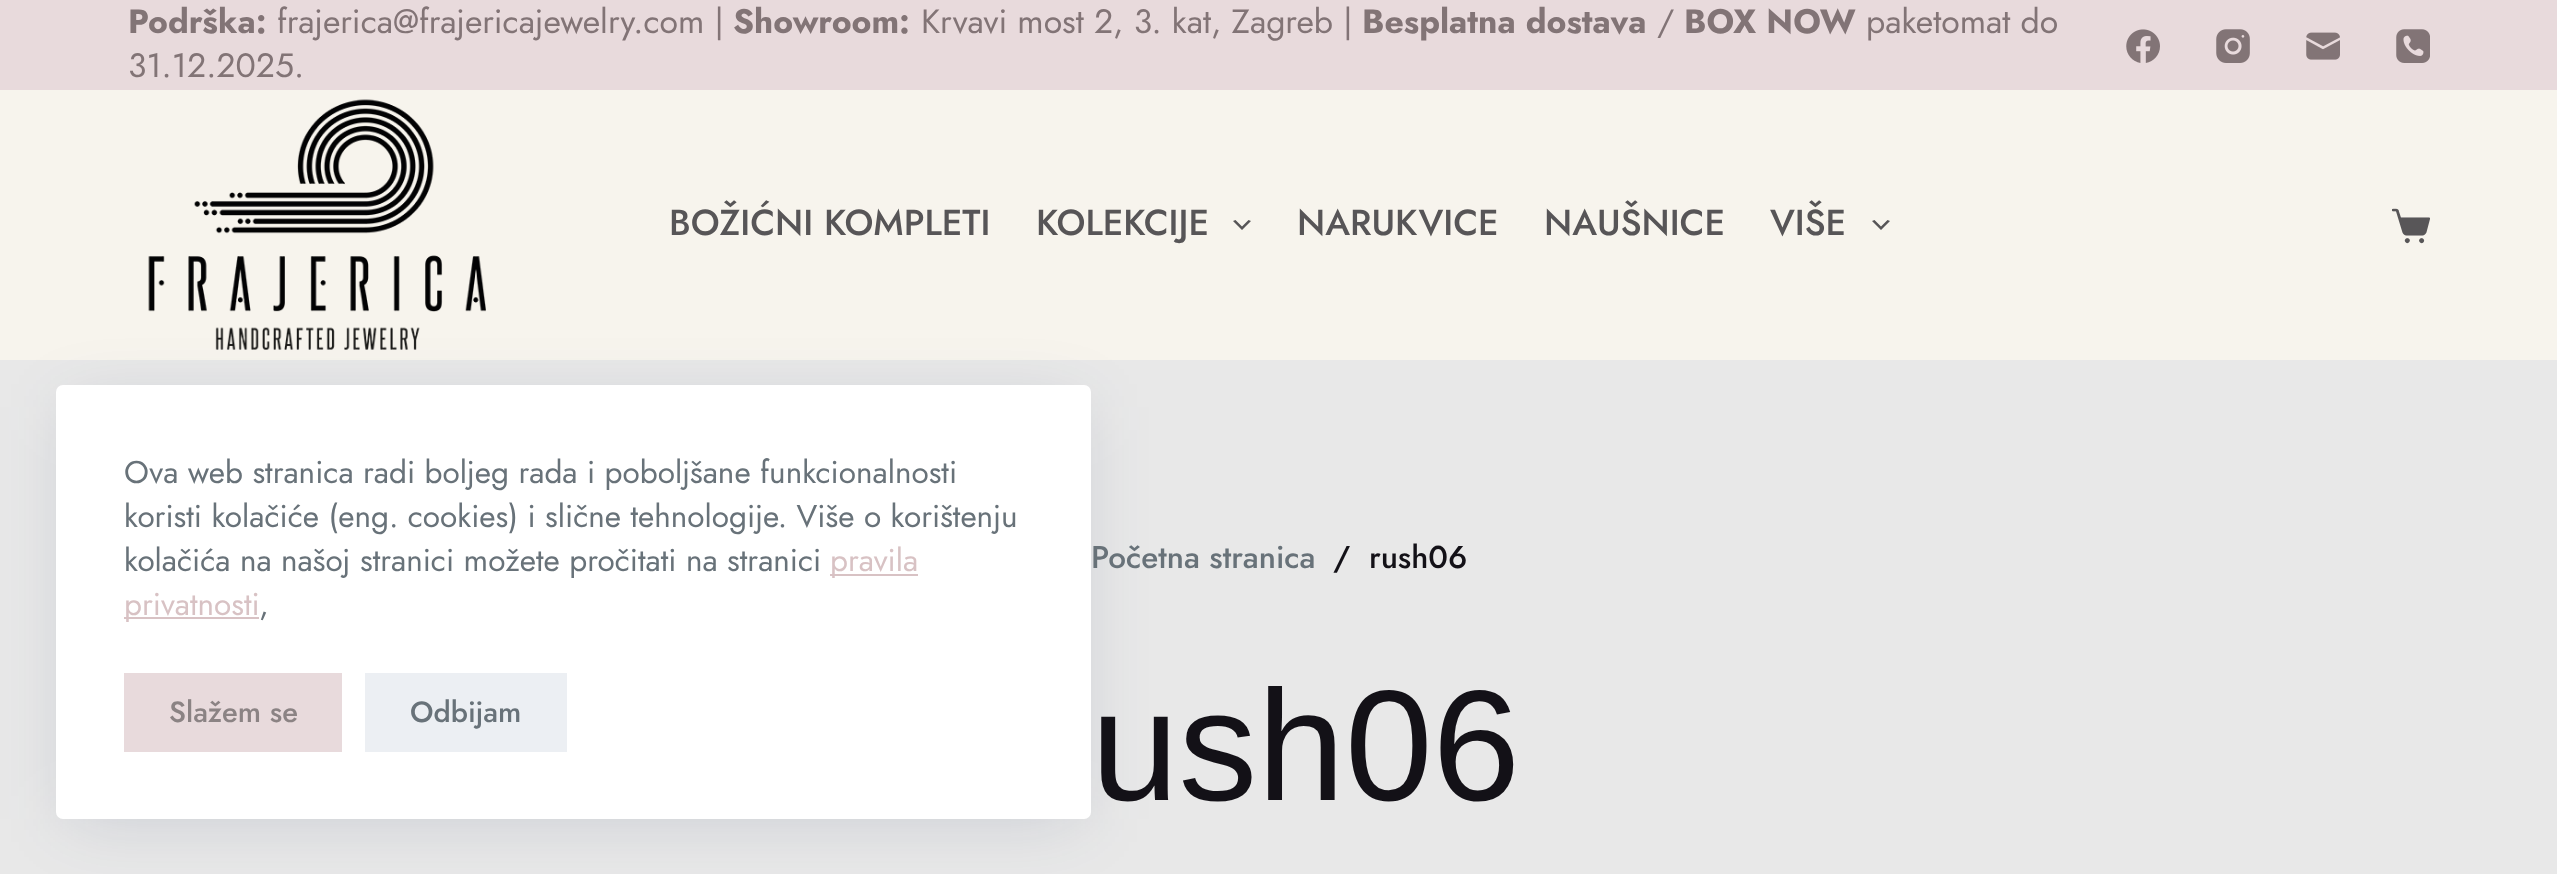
(async () => {
  const canvas = document.querySelector("canvas");
  canvas.width = 2557;
  canvas.height = 874;
  const ctx = canvas.getContext("2d");
  ctx.miterLimit = 4;
  ctx.fontKerning = "normal";
  async function loadImage(src) {
    const img = new Image();
    img.src = src;
    await img.decode();
    return img;
  }
  let path;

  ctx.fillStyle = "#f7f4ed";
  ctx.fillRect(0, 0, 2557, 874);
  ctx.fillStyle = "#e8dadc";
  ctx.fillRect(0, 0, 2557, 90);
  ctx.drawImage(await loadImage("img/1.png"), 2126, 29, 34, 34);
  ctx.drawImage(await loadImage("img/2.png"), 2216, 29, 34, 34);
  ctx.drawImage(await loadImage("img/3.png"), 2306, 32, 34, 28);
  ctx.drawImage(await loadImage("img/4.png"), 2396, 29, 34, 34);
  ctx.drawImage(await loadImage("img/5.png"), 148, 99, 338, 251);
  ctx.fillStyle = "#575557";
  path = new Path2D("M1235.5 220L1242 226.5L1248.5 220L1251 221L1242 230L1233 221Z");
  ctx.fill(path);
  path = new Path2D("M1874.5 220L1881 226.5L1887.5 220L1890 221L1881 230L1872 221Z");
  ctx.fill(path);
  ctx.drawImage(await loadImage("img/6.png"), 2392, 208, 38, 36);
  ctx.fillStyle = "#e8e8e8";
  ctx.fillRect(0, 360, 2557, 514);
  ctx.fillStyle = "rgba(34, 56, 101, 0.15)";
  ctx.filter = "blur(34px)";
  ctx.beginPath();
  ctx.rect(68, 407, 1012, 412);
  ctx.fill();
  ctx.filter = "none";
  ctx.fillStyle = "#ffffff";
  ctx.beginPath();
  ctx.roundRect(56, 385, 1035, 434, 7);
  ctx.fill();
  for (const [x, y, w, h, color] of [
    [830, 574, 88, 2, "#d8c2c4"],
    [124, 617, 135, 2, "#d8c2c4"],
    [124, 673, 218, 79, "#e8dadc"],
    [365, 673, 202, 79, "#eceff3"],
  ]) {
    ctx.fillStyle = color;
    ctx.fillRect(x, y, w, h);
  }
  ctx.font = "bold 33.75px Jost";
  ctx.fillStyle = "#827476";
  ctx.fillText("Podrška:", 128, 33);
  ctx.font = "33.75px Jost";
  ctx.fillText("frajerica@frajericajewelry.com |", 277, 33);
  ctx.font = "bold 33.75px Jost";
  ctx.fillText("Showroom:", 733, 33);
  ctx.font = "33.75px Jost";
  ctx.fillText("Krvavi most 2, 3. kat, Zagreb |", 921, 33);
  ctx.font = "bold 33.75px Jost";
  ctx.fillText("Besplatna dostava", 1362, 33);
  ctx.font = "33.75px Jost";
  ctx.fillText("/", 1657, 33);
  ctx.font = "bold 33.75px Jost";
  ctx.fillText("BOX NOW", 1684, 33);
  ctx.font = "33.75px Jost";
  ctx.fillText("paketomat do", 1866, 33);
  ctx.fillText("31.12.2025.", 128, 77);
  ctx.font = "500 36px Jost";
  ctx.fillStyle = "#575557";
  for (const [text, x, y] of [
    ["BOŽIĆNI KOMPLETI", 669, 235],
    ["KOLEKCIJE", 1036, 235],
    ["NARUKVICE", 1297, 235],
    ["NAUŠNICE", 1544, 235],
    ["VIŠE", 1770, 235],
  ]) {
    ctx.fillText(text, x, y);
  }
  ctx.font = "500 31.5px Jost";
  ctx.fillStyle = "#687279";
  ctx.fillText("Početna stranica", 1091, 568);
  ctx.fillStyle = "#131117";
  ctx.fillText("/", 1333, 568);
  ctx.fillText("rush06", 1369, 568);
  ctx.font = "157.5px Liberation Sans";
  ctx.fillText("ush06", 1091, 800);
  ctx.font = "31.5px Jost";
  ctx.fillStyle = "#687279";
  for (const [text, x, y] of [
    ["Ova web stranica radi boljeg rada i poboljšane funkcionalnosti", 124, 483],
    ["koristi kolačiće (eng. cookies) i slične tehnologije. Više o korištenju", 124, 527],
    ["kolačića na našoj stranici možete pročitati na stranici", 124, 571],
  ]) {
    ctx.fillText(text, x, y);
  }
  ctx.fillStyle = "#d8c2c4";
  ctx.fillText("pravila", 830, 571);
  ctx.fillText("privatnosti", 124, 615);
  ctx.fillStyle = "#687279";
  ctx.fillText(",", 259, 615);
  ctx.font = "500 29.25px Jost";
  ctx.fillStyle = "#8b8384";
  ctx.fillText("Slažem se", 169, 722);
  ctx.fillStyle = "#687279";
  ctx.fillText("Odbijam", 410, 722);
})();
